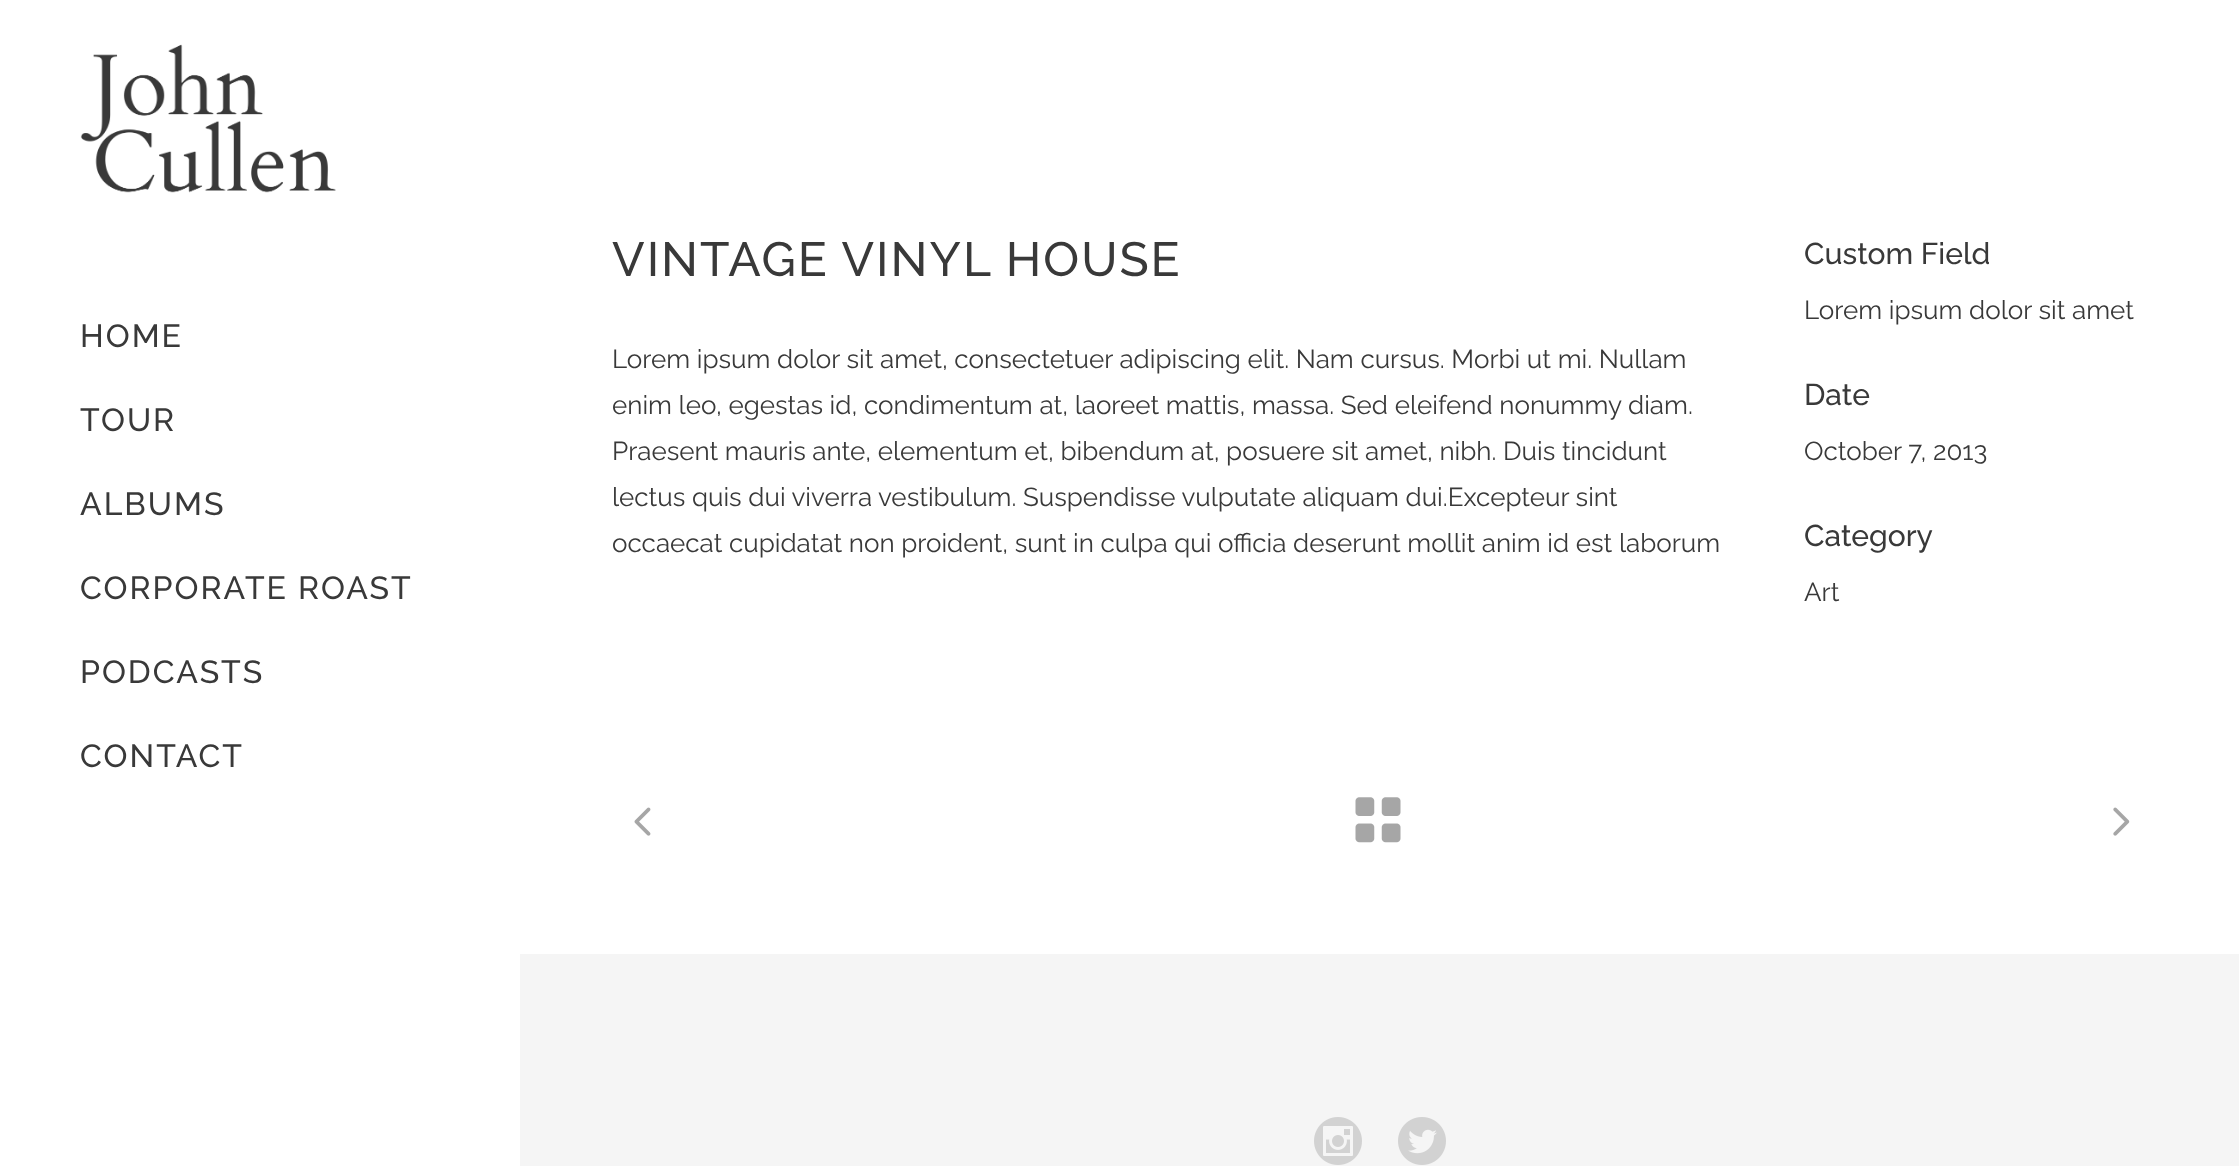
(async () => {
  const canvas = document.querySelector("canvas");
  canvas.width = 2239;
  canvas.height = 1166;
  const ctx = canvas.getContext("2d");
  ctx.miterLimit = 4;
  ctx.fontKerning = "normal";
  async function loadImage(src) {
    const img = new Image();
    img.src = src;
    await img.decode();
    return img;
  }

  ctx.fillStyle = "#ffffff";
  ctx.fillRect(0, 0, 2239, 1166);
  ctx.drawImage(await loadImage("img/1.png"), 80, 44, 256, 149);
  ctx.drawImage(await loadImage("img/2.png"), 634, 807, 17, 29);
  ctx.drawImage(await loadImage("img/3.png"), 1355, 797, 46, 46);
  ctx.drawImage(await loadImage("img/4.png"), 2113, 807, 17, 29);
  ctx.fillStyle = "#f5f5f5";
  ctx.fillRect(520, 954, 1719, 212);
  ctx.drawImage(await loadImage("img/5.png"), 1314, 1117, 48, 48);
  ctx.drawImage(await loadImage("img/6.png"), 1398, 1117, 48, 48);
  ctx.letterSpacing = "2px";
  ctx.font = "500 32px Raleway";
  ctx.fillStyle = "#393939";
  for (const [text, x, y] of [
    ["HOME", 80, 347],
    ["TOUR", 80, 431],
    ["ALBUMS", 80, 515],
    ["CORPORATE ROAST", 80, 599],
    ["PODCASTS", 80, 683],
    ["CONTACT", 80, 767],
  ]) {
    ctx.fillText(text, x, y);
  }
  ctx.font = "500 48px Raleway";
  ctx.fillText("VINTAGE VINYL HOUSE", 612, 276);
  ctx.letterSpacing = "0px";
  ctx.font = "26px Raleway";
  for (const [text, x, y] of [
    ["Lorem ipsum dolor sit amet, consectetuer adipiscing elit. Nam cursus. Morbi ut mi. Nullam", 612, 368],
    ["enim leo, egestas id, condimentum at, laoreet mattis, massa. Sed eleifend nonummy diam.", 612, 414],
    ["Praesent mauris ante, elementum et, bibendum at, posuere sit amet, nibh. Duis tincidunt", 612, 460],
    ["lectus quis dui viverra vestibulum. Suspendisse vulputate aliquam dui.Excepteur sint", 612, 506],
    ["occaecat cupidatat non proident, sunt in culpa qui officia deserunt mollit anim id est laborum", 612, 552],
  ]) {
    ctx.fillText(text, x, y);
  }
  ctx.font = "500 30px Raleway";
  ctx.fillText("Custom Field", 1804, 264);
  ctx.font = "26px Raleway";
  ctx.fillText("Lorem ipsum dolor sit amet", 1804, 319);
  ctx.font = "500 30px Raleway";
  ctx.fillText("Date", 1804, 405);
  ctx.font = "26px Raleway";
  ctx.fillText("October 7, 2013", 1804, 460);
  ctx.font = "500 30px Raleway";
  ctx.fillText("Category", 1804, 546);
  ctx.font = "26px Raleway";
  ctx.fillText("Art", 1804, 601);
})();
